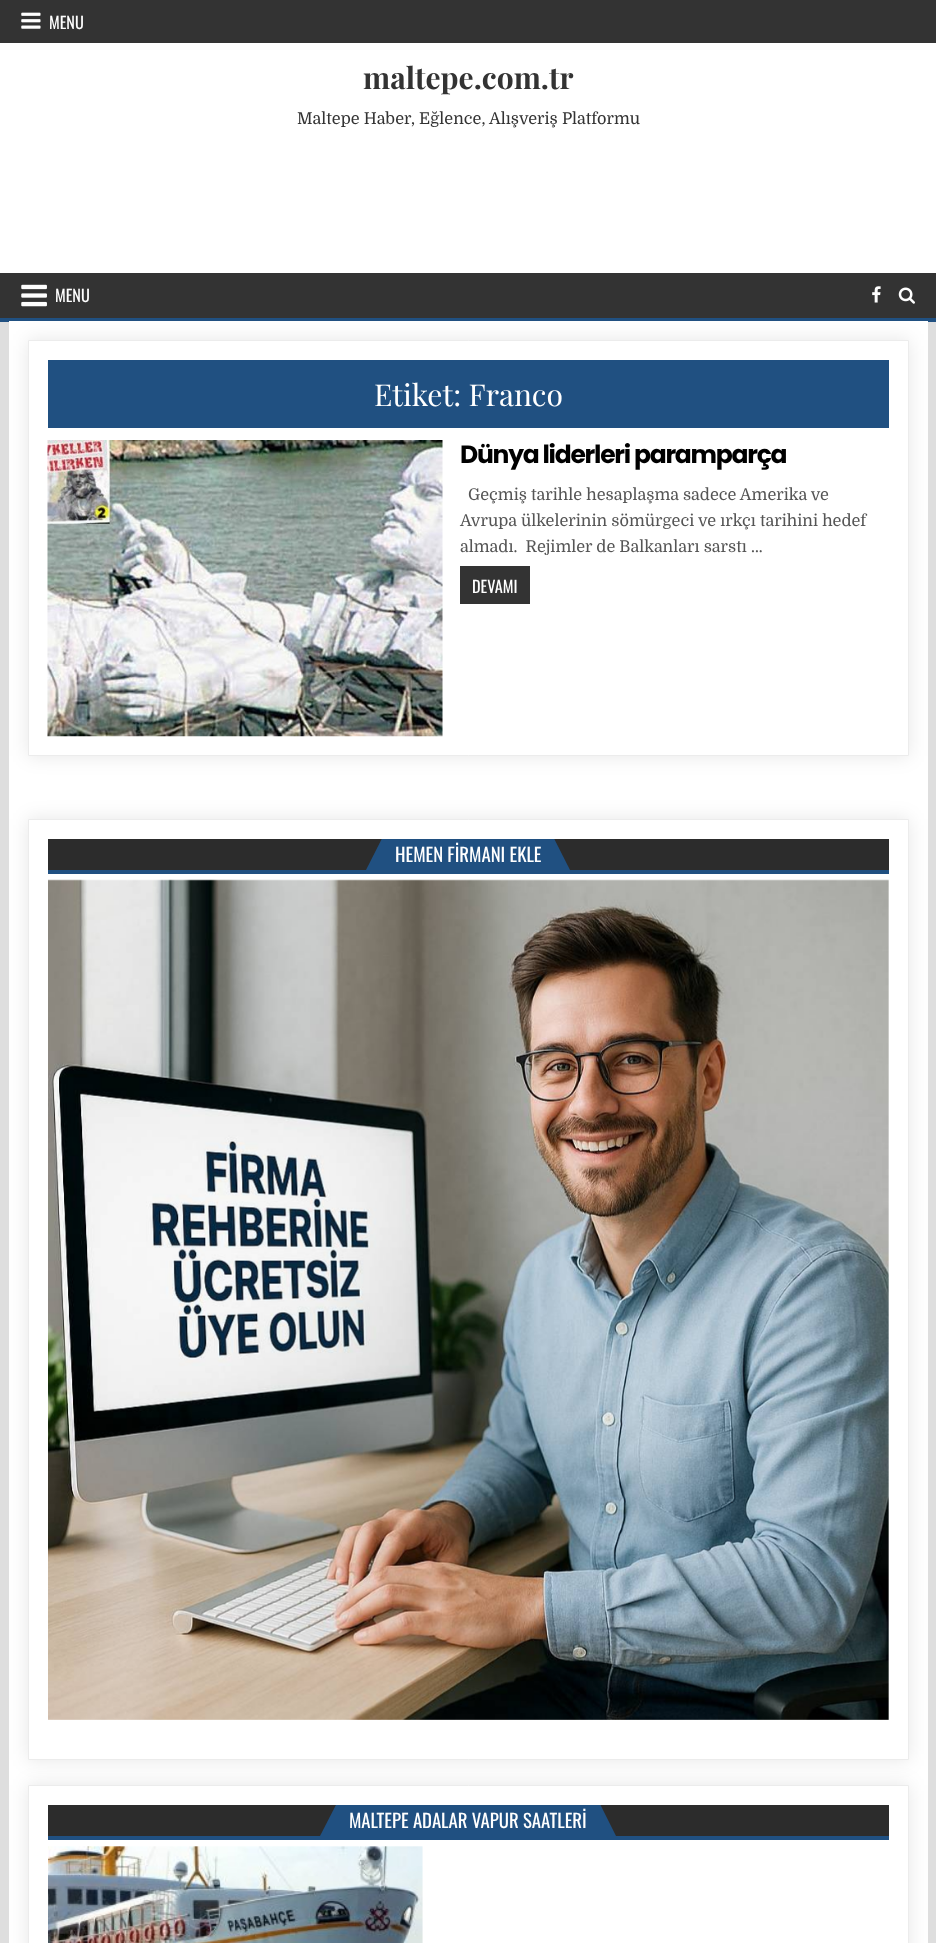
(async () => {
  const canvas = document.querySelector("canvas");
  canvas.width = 936;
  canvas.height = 1943;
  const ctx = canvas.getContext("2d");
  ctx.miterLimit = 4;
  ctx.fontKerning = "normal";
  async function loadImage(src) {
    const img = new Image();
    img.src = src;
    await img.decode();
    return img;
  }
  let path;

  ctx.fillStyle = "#dedede";
  ctx.fillRect(0, 0, 936, 1943);
  ctx.fillStyle = "#333333";
  ctx.fillRect(0, 0, 936, 43);
  ctx.drawImage(await loadImage("img/1.png"), 21, 12, 20, 17);
  for (const [x, y, w, h, color] of [
    [0, 43, 936, 230, "#ffffff"],
    [0, 273, 936, 45, "#333333"],
    [0, 318, 936, 4, "#205081"],
  ]) {
    ctx.fillStyle = color;
    ctx.fillRect(x, y, w, h);
  }
  ctx.drawImage(await loadImage("img/2.png"), 21, 284, 26, 23);
  ctx.drawImage(await loadImage("img/3.png"), 872, 286, 9, 17);
  ctx.drawImage(await loadImage("img/4.png"), 898, 287, 17, 17);
  ctx.fillStyle = "#ffffff";
  ctx.fillRect(9, 321, 919, 1622);
  ctx.fillStyle = "rgba(0, 0, 0, 0.1)";
  ctx.filter = "blur(9.5px)";
  ctx.beginPath();
  ctx.rect(28, 340, 881, 416);
  ctx.fill();
  ctx.filter = "none";
  ctx.fillStyle = "#ffffff";
  ctx.beginPath();
  ctx.rect(28.5, 340.5, 880, 415);
  ctx.fill();
  ctx.strokeStyle = "#ececec";
  ctx.stroke();
  ctx.fillStyle = "#205081";
  ctx.fillRect(48, 360, 841, 68);
  ctx.drawImage(await loadImage("img/5.png"), 47, 440, 396, 297);
  ctx.fillStyle = "#333333";
  ctx.fillRect(460, 566, 70, 38);
  ctx.fillStyle = "rgba(0, 0, 0, 0.1)";
  ctx.filter = "blur(9.5px)";
  ctx.beginPath();
  ctx.rect(28, 819, 881, 941);
  ctx.fill();
  ctx.filter = "none";
  ctx.fillStyle = "#ffffff";
  ctx.beginPath();
  ctx.rect(28.5, 819.5, 880, 940);
  ctx.fill();
  ctx.stroke();
  for (const [x, y, w, h, color] of [
    [48, 839, 841, 31, "#2c2c2c"],
    [48, 870, 841, 4, "#205081"],
    [385, 839, 166, 31, "#205081"],
  ]) {
    ctx.fillStyle = color;
    ctx.fillRect(x, y, w, h);
  }
  ctx.save();
  ctx.beginPath();
  ctx.rect(48, 839, 841, 31);
  ctx.clip();
  path = new Path2D("M385 832.5V870H366Z");
  ctx.fill(path);
  path = new Path2D("M551 870V832.5L570 870Z");
  ctx.fill(path);
  ctx.restore();
  ctx.drawImage(await loadImage("img/6.png"), 48, 879, 841, 841);
  ctx.fillStyle = "rgba(0, 0, 0, 0.1)";
  ctx.filter = "blur(9.5px)";
  ctx.beginPath();
  ctx.rect(28, 1785, 881, 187);
  ctx.fill();
  ctx.filter = "none";
  ctx.fillStyle = "#ffffff";
  ctx.beginPath();
  ctx.rect(28.5, 1785.5, 880, 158);
  ctx.fill();
  ctx.stroke();
  for (const [x, y, w, h, color] of [
    [48, 1805, 841, 31, "#2c2c2c"],
    [48, 1836, 841, 4, "#205081"],
    [339, 1805, 259, 31, "#205081"],
  ]) {
    ctx.fillStyle = color;
    ctx.fillRect(x, y, w, h);
  }
  ctx.save();
  ctx.beginPath();
  ctx.rect(48, 1805, 841, 31);
  ctx.clip();
  path = new Path2D("M339 1799V1836H320Z");
  ctx.fill(path);
  path = new Path2D("M597.5 1836V1799L616 1836Z");
  ctx.fill(path);
  ctx.restore();
  ctx.drawImage(await loadImage("img/7.png"), 48, 1846, 375, 97);
  ctx.font = "16.25px Oswald";
  ctx.fillStyle = "#ffffff";
  ctx.fillText("MENU", 49, 29);
  ctx.font = "bold 30px Playfair Display";
  ctx.fillStyle = "#333333";
  ctx.fillText("maltepe.com.tr", 363, 89);
  ctx.font = "16.25px Domine";
  ctx.fillText("Maltepe Haber, Eğlence, Alışveriş Platformu", 297, 124);
  ctx.font = "16.25px Oswald";
  ctx.fillStyle = "#ffffff";
  ctx.fillText("MENU", 55, 302);
  ctx.font = "30px Playfair Display";
  ctx.fillText("Etiket: Franco", 374, 406);
  ctx.letterSpacing = "-1.25px";
  ctx.font = "bold 25px Poppins";
  ctx.fillStyle = "#000000";
  ctx.fillText("Dünya liderleri paramparça", 460, 463);
  ctx.letterSpacing = "0px";
  ctx.font = "16.25px Domine";
  ctx.fillStyle = "#555555";
  for (const [text, x, y] of [
    ["Geçmiş tarihle hesaplaşma sadece Amerika ve", 468, 500],
    ["Avrupa ülkelerinin sömürgeci ve ırkçı tarihini hedef", 460, 526],
    ["almadı.  Rejimler de Balkanları sarstı …", 460, 552],
  ]) {
    ctx.fillText(text, x, y);
  }
  ctx.font = "16.25px Oswald";
  ctx.fillStyle = "#ffffff";
  ctx.fillText("DEVAMI", 472, 593);
  ctx.font = "18.75px Oswald";
  ctx.fillText("HEMEN FİRMANI EKLE", 395, 862);
  ctx.fillText("MALTEPE ADALAR VAPUR SAATLERİ", 349, 1828);
})();
